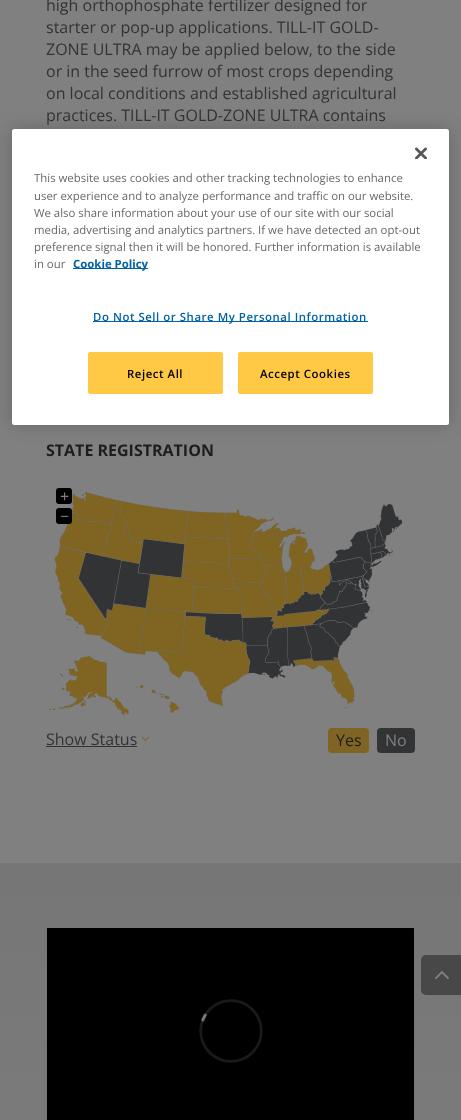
(async () => {
  const canvas = document.querySelector("canvas");
  canvas.width = 461;
  canvas.height = 1120;
  const ctx = canvas.getContext("2d");
  ctx.miterLimit = 4;
  ctx.fontKerning = "normal";
  async function loadImage(src) {
    const img = new Image();
    img.src = src;
    await img.decode();
    return img;
  }
  let gradient;

  ctx.fillStyle = "#808080";
  ctx.fillRect(0, 0, 461, 1120);
  ctx.drawImage(await loadImage("img/1.png"), 48, 492, 355, 224);
  ctx.fillStyle = "#000000";
  ctx.beginPath();
  ctx.roundRect(56, 488, 16, 16, 3);
  ctx.fill();
  ctx.beginPath();
  ctx.roundRect(56, 508, 16, 16, 3);
  ctx.fill();
  ctx.fillStyle = "#323335";
  ctx.fillRect(46, 746, 91, 1);
  ctx.drawImage(await loadImage("img/2.png"), 141, 736, 9, 5);
  ctx.fillStyle = "#806423";
  ctx.beginPath();
  ctx.roundRect(328, 728, 41, 25, 4);
  ctx.fill();
  ctx.fillStyle = "#323335";
  ctx.beginPath();
  ctx.roundRect(377, 728, 38, 25, 4);
  ctx.fill();
  gradient = ctx.createLinearGradient(230, 863, 231, 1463);
  gradient.addColorStop(0, "#767676");
  gradient.addColorStop(1, "#808080");
  ctx.fillStyle = gradient;
  ctx.fillRect(0, 863, 461, 257);
  ctx.strokeStyle = "#767676";
  ctx.strokeRect(46.5, 927.5, 368, 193);
  ctx.drawImage(await loadImage("img/3.png"), 47, 928, 367, 192);
  ctx.fillStyle = "rgba(0, 0, 0, 0.2)";
  ctx.filter = "blur(9px)";
  ctx.beginPath();
  ctx.roundRect(12, 129, 437, 296, 2.5);
  ctx.fill();
  ctx.filter = "none";
  ctx.fillStyle = "#ffffff";
  ctx.beginPath();
  ctx.roundRect(12, 129, 437, 296, 2.5);
  ctx.fill();
  ctx.drawImage(await loadImage("img/4.png"), 415, 147, 12, 12);
  ctx.fillStyle = "#0062a6";
  ctx.fillRect(73, 268, 75, 1);
  ctx.fillRect(93, 321, 275, 1);
  ctx.fillStyle = "#ffc845";
  ctx.beginPath();
  ctx.roundRect(88.5, 352.5, 134, 41, 1.5);
  ctx.fill();
  ctx.strokeStyle = "#ffc845";
  ctx.stroke();
  ctx.beginPath();
  ctx.roundRect(238.5, 352.5, 134, 41, 1.5);
  ctx.fill();
  ctx.stroke();
  ctx.fillStyle = "#484848";
  ctx.beginPath();
  ctx.roundRect(421, 955, 40, 40, [5, 0, 0, 5]);
  ctx.fill();
  ctx.drawImage(await loadImage("img/5.png"), 435, 971, 14, 8);
  ctx.font = "16px Open Sans";
  ctx.fillStyle = "#323335";
  for (const [text, x, y] of [
    ["high orthophosphate fertilizer designed for", 46, 11],
    ["starter or pop-up applications. TILL-IT GOLD-", 46, 33],
    ["ZONE ULTRA may be applied below, to the side", 46, 55],
    ["or in the seed furrow of most crops depending", 46, 77],
    ["on local conditions and established agricultural", 46, 99],
    ["practices. TILL-IT GOLD-ZONE ULTRA contains", 46, 121],
  ]) {
    ctx.fillText(text, x, y);
  }
  ctx.font = "bold 16px Open Sans";
  ctx.fillStyle = "#1f1d1b";
  ctx.fillText("STATE REGISTRATION", 46, 456);
  ctx.font = "16px Open Sans";
  ctx.fillStyle = "#808080";
  ctx.fillText("+", 60, 502);
  ctx.fillText("−", 60, 522);
  ctx.fillStyle = "#323335";
  ctx.fillText("Show Status", 46, 745);
  ctx.fillStyle = "#1f1d1b";
  ctx.fillText("Yes", 336, 746);
  ctx.fillStyle = "#808080";
  ctx.fillText("No", 385, 746);
  ctx.font = "11.4px Open Sans";
  ctx.fillStyle = "#696969";
  for (const [text, x, y] of [
    ["This website uses cookies and other tracking technologies to enhance", 34, 182],
    ["user experience and to analyze performance and traffic on our website.", 34, 200],
    ["We also share information about your use of our site with our social", 34, 217],
    ["media, advertising and analytics partners. If we have detected an opt-out", 34, 234],
    ["preference signal then it will be honored. Further information is available", 34, 251],
    ["in our", 34, 268],
  ]) {
    ctx.fillText(text, x, y);
  }
  ctx.font = "bold 11.4px Open Sans";
  ctx.fillStyle = "#0062a6";
  ctx.fillText("Cookie Policy", 73, 268);
  ctx.letterSpacing = "0.55px";
  ctx.font = "600 11.4px Open Sans";
  ctx.fillText("Do Not Sell or Share My Personal Information", 93, 321);
  ctx.fillStyle = "#000000";
  ctx.fillText("Reject All", 127, 378);
  ctx.fillText("Accept Cookies", 260, 378);
})();
